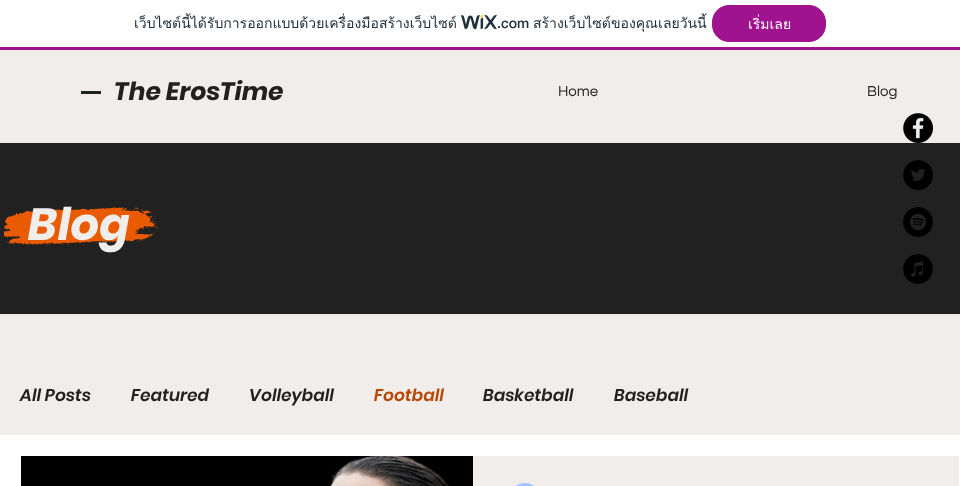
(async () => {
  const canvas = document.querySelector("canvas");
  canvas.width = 960;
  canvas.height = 486;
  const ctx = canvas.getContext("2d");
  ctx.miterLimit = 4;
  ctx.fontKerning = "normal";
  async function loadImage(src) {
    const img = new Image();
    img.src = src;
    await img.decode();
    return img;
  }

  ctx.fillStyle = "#ffffff";
  ctx.fillRect(0, 0, 960, 486);
  ctx.fillStyle = "#a0138e";
  ctx.fillRect(0, 47, 960, 3);
  ctx.drawImage(await loadImage("img/1.png"), 461, 15, 36, 15);
  ctx.beginPath();
  ctx.roundRect(712.5, 5.5, 113, 36, 16.5);
  ctx.fill();
  ctx.strokeStyle = "#a0138e";
  ctx.stroke();
  for (const [x, y, w, h, color] of [
    [0, 50, 960, 385, "#f0edeb"],
    [81, 91, 20, 3, "#212121"],
    [0, 143, 960, 171, "#212121"],
  ]) {
    ctx.fillStyle = color;
    ctx.fillRect(x, y, w, h);
  }
  ctx.drawImage(await loadImage("img/2.png"), 4, 207, 154, 39);
  ctx.drawImage(await loadImage("img/3.png"), 21, 456, 452, 30);
  ctx.fillStyle = "#f0edeb";
  ctx.fillRect(473, 456, 486, 30);
  ctx.drawImage(await loadImage("img/4.png"), 516, 483, 18, 3);
  ctx.drawImage(await loadImage("img/5.png"), 903, 113, 30, 30);
  ctx.drawImage(await loadImage("img/6.png"), 903, 160, 30, 30);
  ctx.drawImage(await loadImage("img/7.png"), 903, 207, 30, 30);
  ctx.drawImage(await loadImage("img/8.png"), 903, 254, 30, 30);
  ctx.font = "14px Loma";
  ctx.fillStyle = "#20303c";
  ctx.fillText("เว็บไซต์นี้ได้รับการออกแบบด้วยเครื่องมือสร้างเว็บไซต์", 134, 28);
  ctx.font = "500 14px 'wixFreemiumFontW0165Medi'";
  ctx.fillText(".com", 497, 28);
  ctx.font = "14px Loma";
  ctx.fillText("สร้างเว็บไซต์ของคุณเลยวันนี้", 533, 28);
  ctx.fillStyle = "#ffffff";
  ctx.fillText("เริ่มเลย", 748, 29);
  ctx.font = "italic bold 25px Poppins";
  ctx.fillStyle = "#212121";
  ctx.fillText("The ErosTime", 114, 100);
  ctx.font = "15px Questrial";
  ctx.fillText("Home", 558, 96);
  ctx.fillText("Blog", 867, 96);
  ctx.font = "italic bold 45px Poppins";
  ctx.fillStyle = "#f0edeb";
  ctx.fillText("Blog", 28, 240);
  ctx.font = "italic 600 17px Poppins";
  ctx.fillStyle = "#212121";
  for (const [text, x, y] of [
    ["All Posts", 20, 401],
    ["Featured", 131, 401],
    ["Volleyball", 249, 401],
  ]) {
    ctx.fillText(text, x, y);
  }
  ctx.fillStyle = "#b84600";
  ctx.fillText("Football", 374, 401);
  ctx.fillStyle = "#212121";
  ctx.fillText("Basketball", 483, 401);
  ctx.fillText("Baseball", 614, 401);
})();
